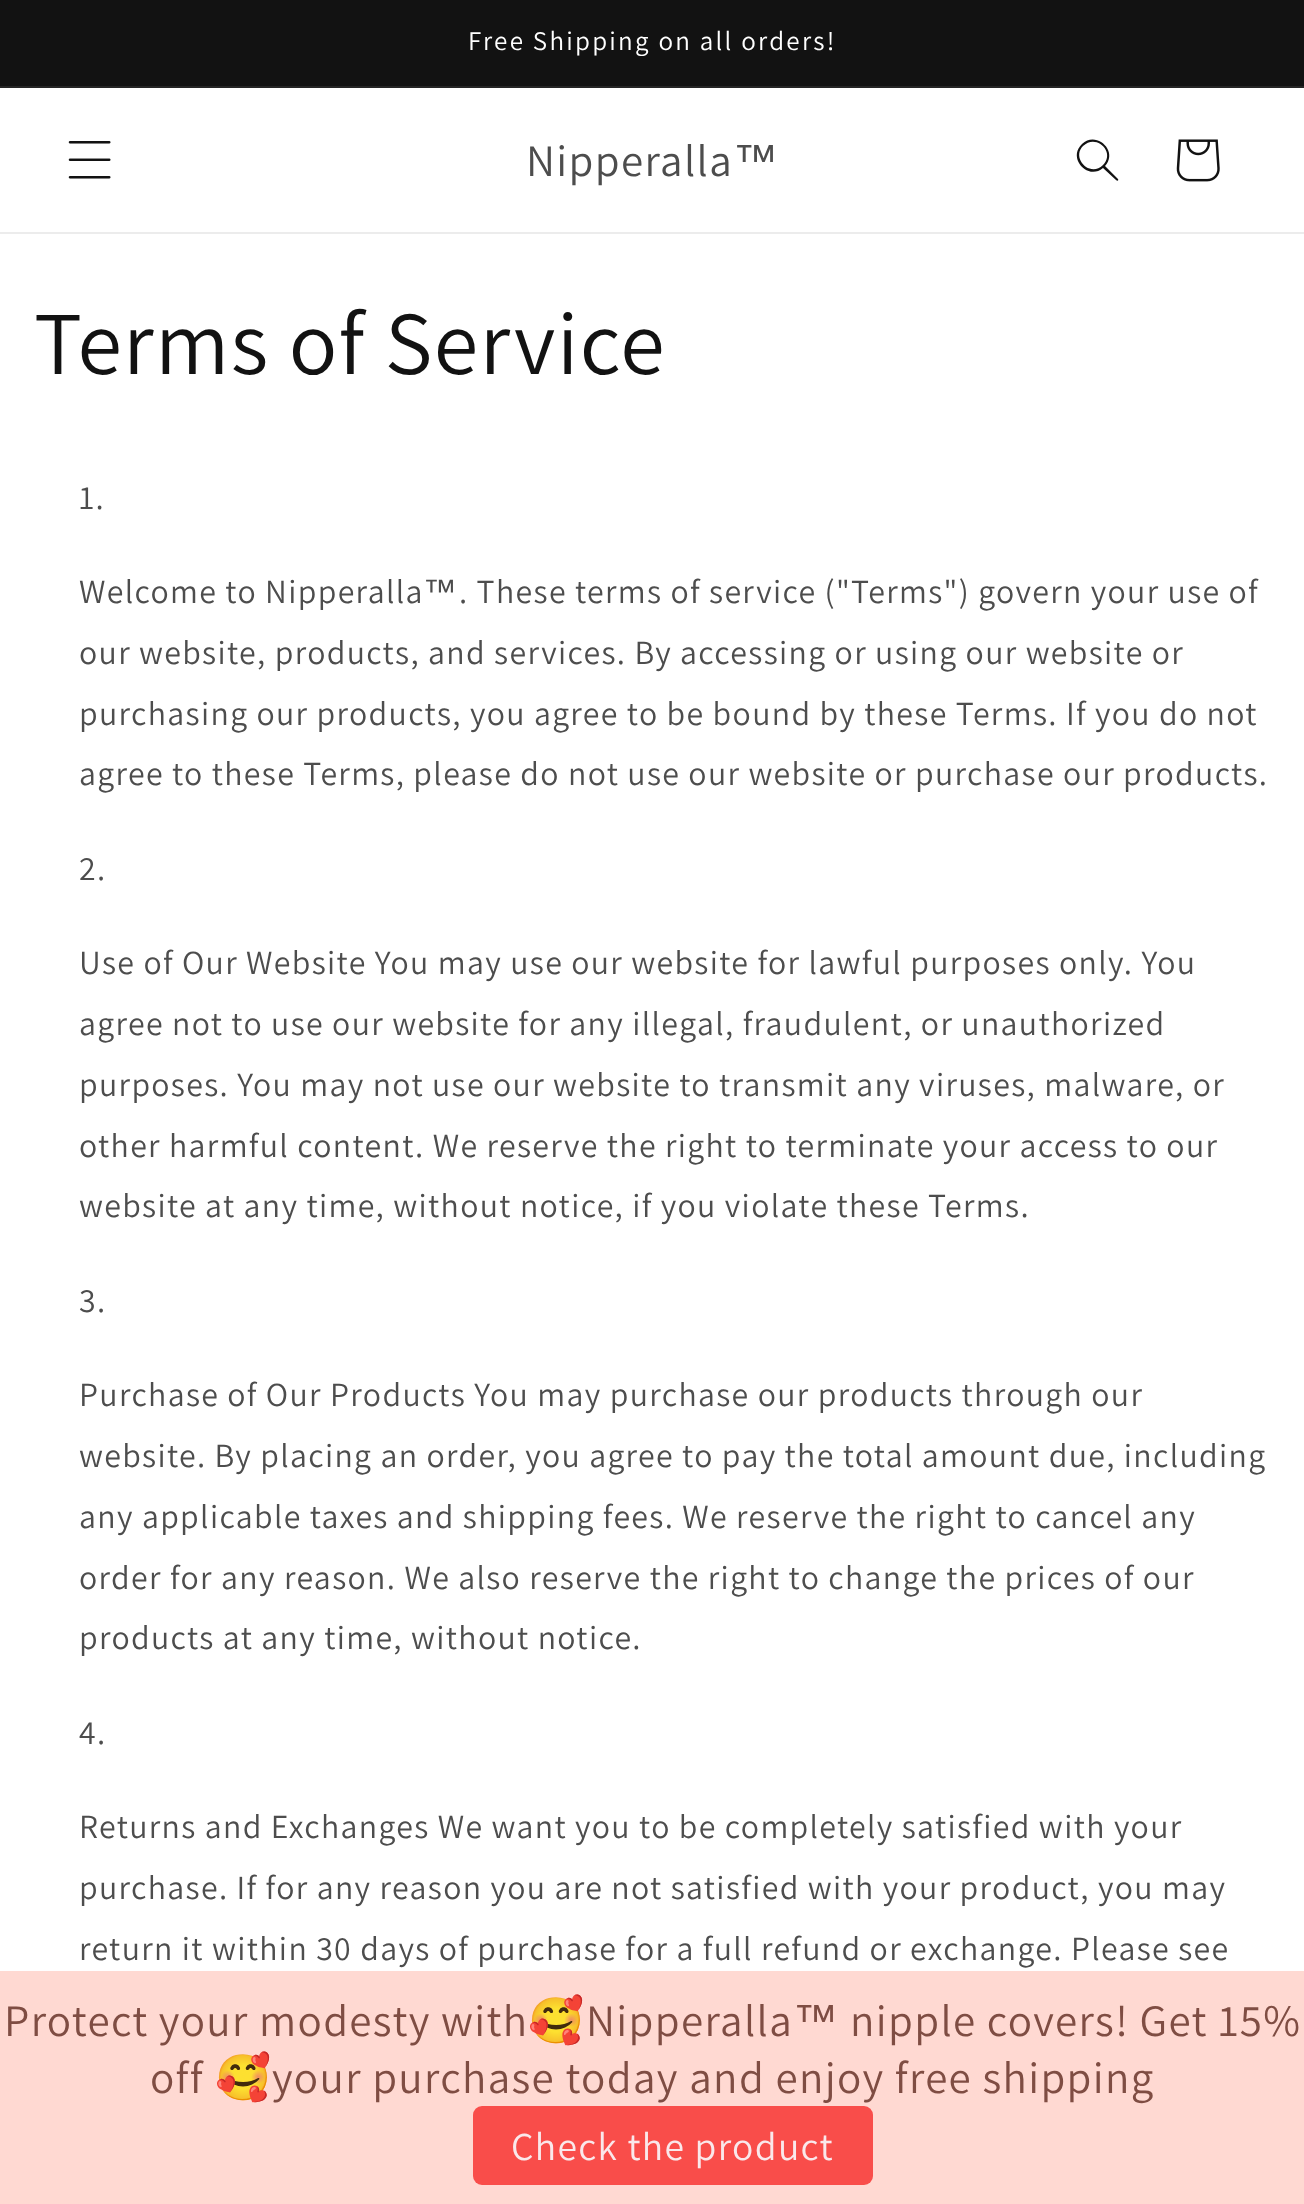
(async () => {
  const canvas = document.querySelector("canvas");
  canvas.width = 1304;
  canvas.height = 2204;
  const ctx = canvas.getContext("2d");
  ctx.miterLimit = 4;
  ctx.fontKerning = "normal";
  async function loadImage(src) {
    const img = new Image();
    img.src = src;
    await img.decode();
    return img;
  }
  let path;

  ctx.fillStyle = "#ffffff";
  ctx.fillRect(0, 0, 1304, 2204);
  for (const [x, y, w, h, color] of [
    [0, 0, 1304, 86, "#121212"],
    [0, 86, 1304, 2, "#252525"],
    [0, 232, 1304, 2, "#ececec"],
  ]) {
    ctx.fillStyle = color;
    ctx.fillRect(x, y, w, h);
  }
  ctx.drawImage(await loadImage("img/1.png"), 68, 141, 43, 38);
  ctx.fillStyle = "#121212";
  path = new Path2D("M1103 165C1090 178 1071 158 1083 146C1096 133 1116 152 1103 165M1103 168C1088 181 1067 158 1082 144C1096 130 1119 151 1105 166L1118 179C1119 181 1117 181 1116 180Z");
  ctx.fill(path, "evenodd");
  ctx.drawImage(await loadImage("img/2.png"), 1176, 139, 44, 43);
  ctx.fillStyle = "#ffd9d2";
  ctx.fillRect(0, 1971, 1304, 233);
  ctx.fillStyle = "#f94d4a";
  ctx.beginPath();
  ctx.roundRect(473, 2106, 400, 79, 9);
  ctx.fill();
  ctx.letterSpacing = "2.25px";
  ctx.font = "27px Assistant";
  ctx.fillStyle = "#ffffff";
  ctx.fillText("Free Shipping on all orders!", 468, 50);
  ctx.letterSpacing = "1.35px";
  ctx.font = "45px Assistant";
  ctx.fillStyle = "#4d4d4d";
  ctx.fillText("Nipperalla", 526, 176);
  ctx.font = "45px Liberation Sans";
  ctx.fillText("™", 733, 176);
  ctx.font = "90px Assistant";
  ctx.fillStyle = "#121212";
  ctx.fillText("Terms of Service", 34, 374);
  ctx.font = "33.75px Assistant";
  ctx.fillStyle = "#4d4d4d";
  ctx.fillText("1.", 79, 509);
  ctx.fillText("Welcome to Nipperalla", 79, 603);
  ctx.font = "33.75px Liberation Sans";
  ctx.fillText("™", 423, 603);
  ctx.font = "33.75px Assistant";
  for (const [text, x, y] of [
    [". These terms of service (\"Terms\") govern your use of", 459, 603],
    ["our website, products, and services. By accessing or using our website or", 79, 664],
    ["purchasing our products, you agree to be bound by these Terms. If you do not", 79, 725],
    ["agree to these Terms, please do not use our website or purchase our products.", 79, 785],
    ["2.", 79, 880],
    ["Use of Our Website You may use our website for lawful purposes only. You", 79, 974],
    ["agree not to use our website for any illegal, fraudulent, or unauthorized", 79, 1035],
    ["purposes. You may not use our website to transmit any viruses, malware, or", 79, 1096],
    ["other harmful content. We reserve the right to terminate your access to our", 79, 1157],
    ["website at any time, without notice, if you violate these Terms.", 79, 1217],
    ["3.", 79, 1312],
    ["Purchase of Our Products You may purchase our products through our", 79, 1406],
    ["website. By placing an order, you agree to pay the total amount due, including", 79, 1467],
    ["any applicable taxes and shipping fees. We reserve the right to cancel any", 79, 1528],
    ["order for any reason. We also reserve the right to change the prices of our", 79, 1589],
    ["products at any time, without notice.", 79, 1649],
    ["4.", 79, 1744],
    ["Returns and Exchanges We want you to be completely satisfied with your", 79, 1838],
    ["purchase. If for any reason you are not satisfied with your product, you may", 79, 1899],
    ["return it within 30 days of purchase for a full refund or exchange. Please see", 79, 1960],
  ]) {
    ctx.fillText(text, x, y);
  }
  ctx.font = "45px Assistant";
  ctx.fillStyle = "#7f4d43";
  ctx.fillText("Protect your modesty with", 4, 2036);
  ctx.font = "45px Noto Color Emoji";
  ctx.fillText("🥰", 528, 2036);
  ctx.font = "45px Assistant";
  ctx.fillText("Nipperalla", 586, 2036);
  ctx.font = "45px Liberation Sans";
  ctx.fillText("™", 793, 2036);
  ctx.font = "45px Assistant";
  ctx.fillText("nipple covers! Get 15%", 850, 2036);
  ctx.fillText("off", 150, 2093);
  ctx.font = "45px Noto Color Emoji";
  ctx.fillText("🥰", 215, 2093);
  ctx.font = "45px Assistant";
  ctx.fillText("your purchase today and enjoy free shipping", 272, 2093);
  ctx.font = "39.5px Assistant";
  ctx.fillStyle = "#fae8eb";
  ctx.fillText("Check the product", 511, 2160);
})();
